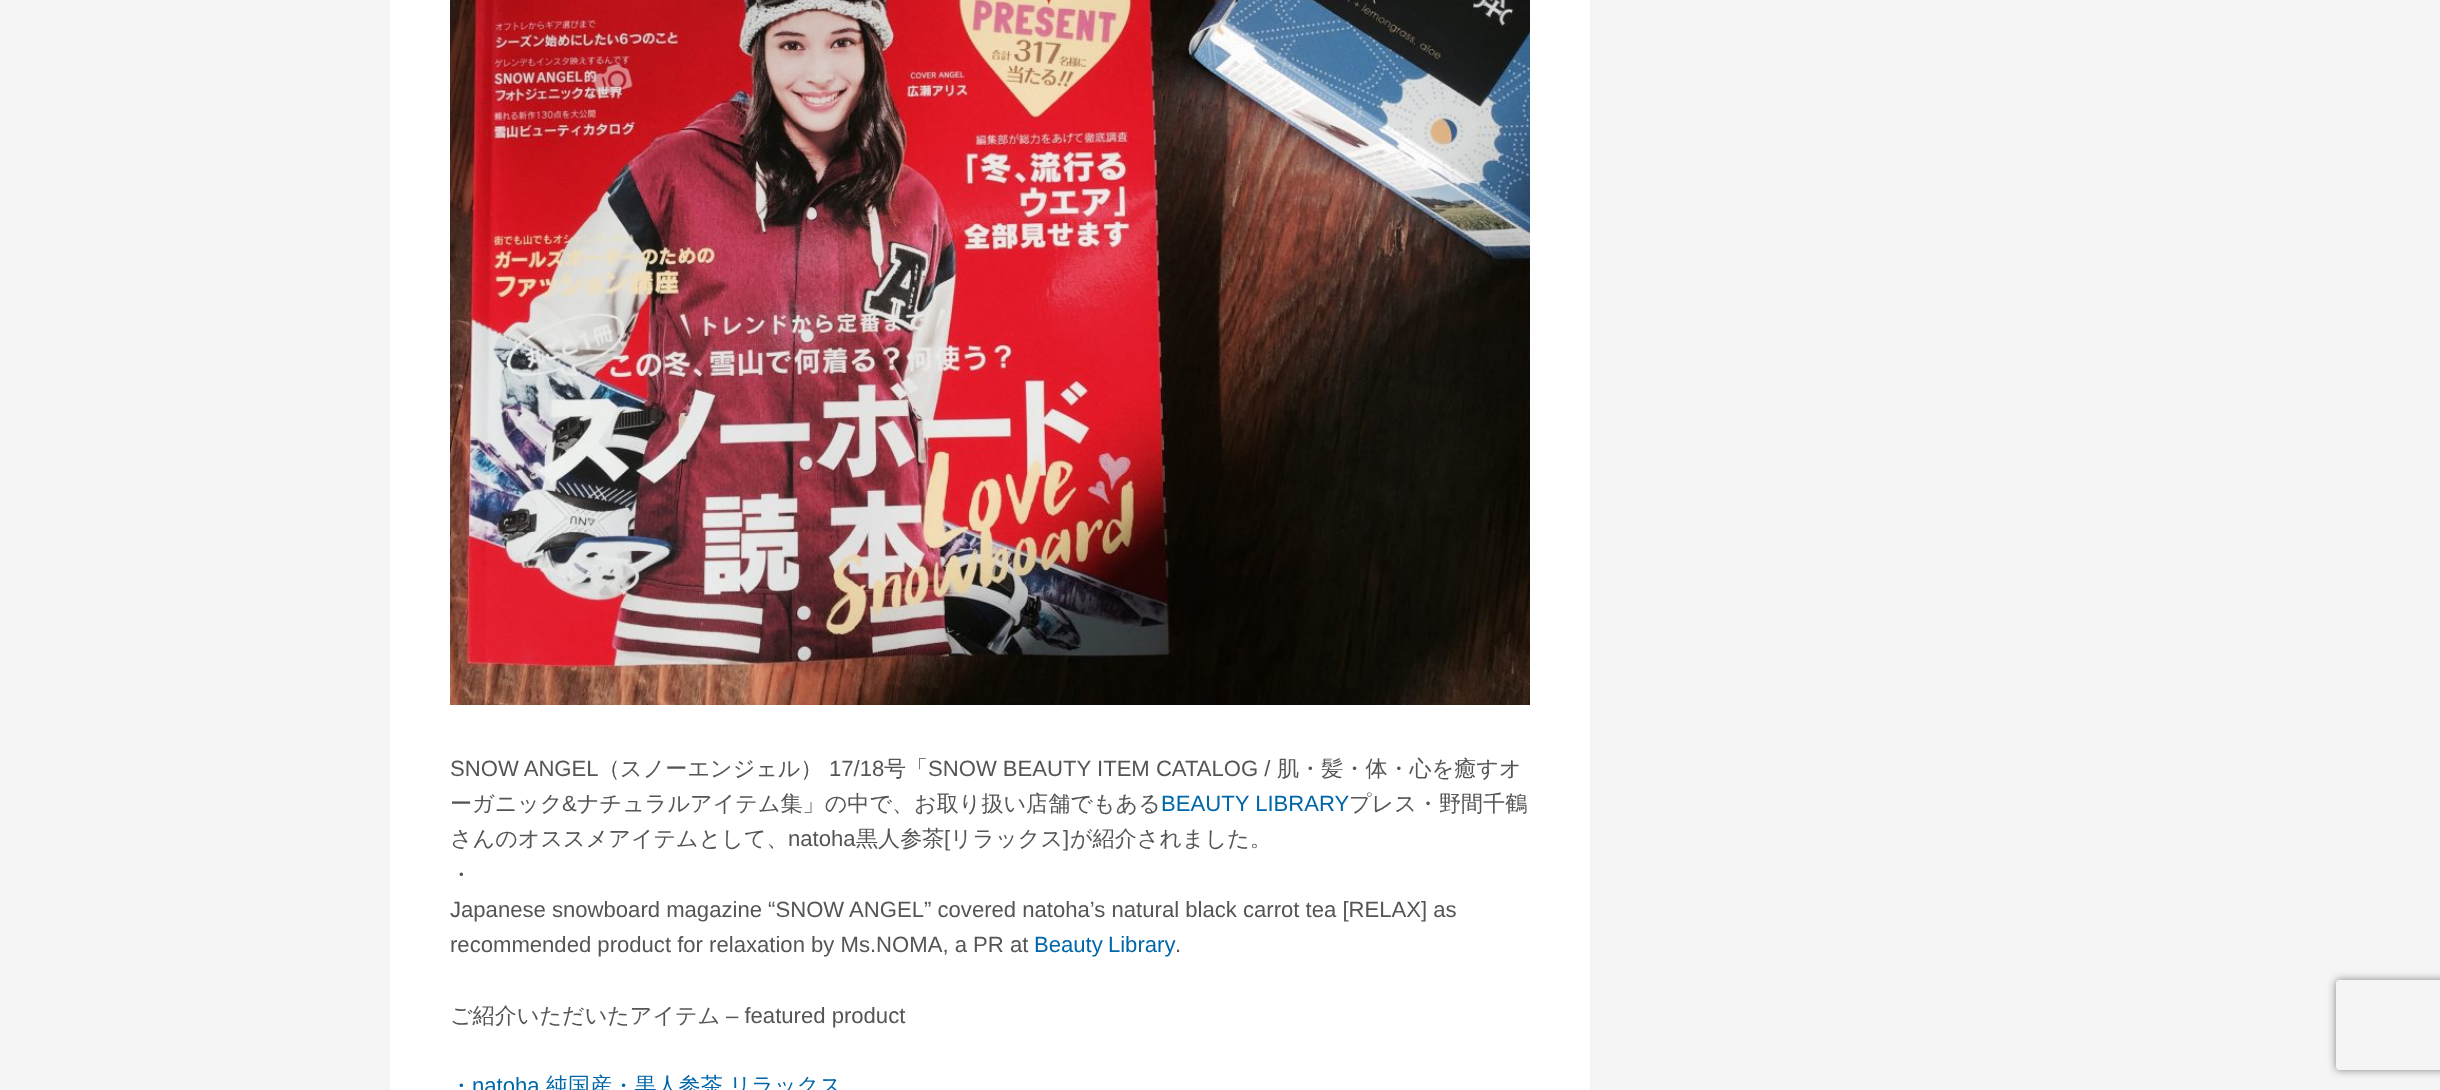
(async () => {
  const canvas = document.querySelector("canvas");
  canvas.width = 2440;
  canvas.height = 1090;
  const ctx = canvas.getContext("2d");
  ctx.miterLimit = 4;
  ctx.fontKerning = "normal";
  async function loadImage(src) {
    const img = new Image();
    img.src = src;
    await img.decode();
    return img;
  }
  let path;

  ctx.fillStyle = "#f5f5f5";
  ctx.fillRect(0, 0, 2440, 1090);
  ctx.fillStyle = "#ffffff";
  ctx.fillRect(390, 0, 1200, 1090);
  ctx.drawImage(await loadImage("img/1.png"), 450, 0, 1080, 705);
  ctx.save();
  path = new Path2D("M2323 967H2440V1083H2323ZM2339 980H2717C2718.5 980 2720 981.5 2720 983V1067C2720 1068.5 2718.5 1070 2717 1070H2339C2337.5 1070 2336 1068.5 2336 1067V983C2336 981.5 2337.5 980 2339 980Z");
  ctx.clip(path, "evenodd");
  ctx.fillStyle = "#808080";
  ctx.filter = "blur(4px)";
  ctx.beginPath();
  ctx.roundRect(2336, 980, 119, 90, 3);
  ctx.fill();
  ctx.filter = "none";
  ctx.restore();
  ctx.font = "22.1px Liberation Sans";
  ctx.fillStyle = "#555555";
  ctx.fillText("SNOW ANGEL", 450, 776);
  ctx.font = "500 22.1px WenQuanYi Zen Hei";
  ctx.fillText("（スノーエンジェル）", 598, 776);
  ctx.font = "22.1px Liberation Sans";
  ctx.fillText("17/18", 829, 776);
  ctx.font = "500 22.1px WenQuanYi Zen Hei";
  ctx.fillText("号「", 884, 776);
  ctx.font = "22.1px Liberation Sans";
  ctx.fillText("SNOW BEAUTY ITEM CATALOG /", 928, 776);
  ctx.font = "500 22.1px WenQuanYi Zen Hei";
  ctx.fillText("肌・髪・体・心を癒すオ", 1277, 776);
  ctx.fillText("ーガニック", 450, 811);
  ctx.font = "22.1px Liberation Sans";
  ctx.fillText("&", 562, 811);
  ctx.font = "500 22.1px WenQuanYi Zen Hei";
  ctx.fillText("ナチュラルアイテム集」の中で、お取り扱い店舗でもある", 577, 811);
  ctx.font = "22.1px Liberation Sans";
  ctx.fillStyle = "#0066aa";
  ctx.fillText("BEAUTY LIBRARY", 1161, 811);
  ctx.font = "500 22.1px WenQuanYi Zen Hei";
  ctx.fillStyle = "#555555";
  ctx.fillText("プレス・野間千鶴", 1349, 811);
  ctx.fillText("さんのオススメアイテムとして、", 450, 846);
  ctx.font = "22.1px Liberation Sans";
  ctx.fillText("natoha", 788, 846);
  ctx.font = "500 22.1px WenQuanYi Zen Hei";
  ctx.fillText("黒人参茶", 856, 846);
  ctx.font = "22.1px Liberation Sans";
  ctx.fillText("[", 944, 846);
  ctx.font = "500 22.1px WenQuanYi Zen Hei";
  ctx.fillText("リラックス", 950, 846);
  ctx.font = "22.1px Liberation Sans";
  ctx.fillText("]", 1063, 846);
  ctx.font = "500 22.1px WenQuanYi Zen Hei";
  ctx.fillText("が紹介されました。", 1070, 846);
  ctx.fillText("・", 450, 882);
  ctx.font = "22.1px Liberation Sans";
  ctx.fillText("Japanese snowboard magazine “SNOW ANGEL” covered natoha’s natural black carrot tea [RELAX] as", 450, 917);
  ctx.fillText("recommended product for relaxation by Ms.NOMA, a PR at", 450, 952);
  ctx.wordSpacing = "-1px";
  ctx.fillStyle = "#0066aa";
  ctx.fillText("Beauty Library", 1034, 952);
  ctx.wordSpacing = "0px";
  ctx.fillStyle = "#555555";
  ctx.fillText(".", 1175, 952);
  ctx.font = "500 22.1px WenQuanYi Zen Hei";
  ctx.fillText("ご紹介いただいたアイテム", 450, 1023);
  ctx.font = "22.1px Liberation Sans";
  ctx.fillText("– featured product", 726, 1023);
  ctx.font = "500 22.1px WenQuanYi Zen Hei";
  ctx.fillStyle = "#0066aa";
  ctx.fillText("・", 450, 1093);
  ctx.font = "22.1px Liberation Sans";
  ctx.fillText("natoha", 472, 1093);
  ctx.font = "500 22.1px WenQuanYi Zen Hei";
  ctx.fillText("純国産・黒人参茶", 546, 1093);
  ctx.fillText("リラックス", 729, 1093);
})();
